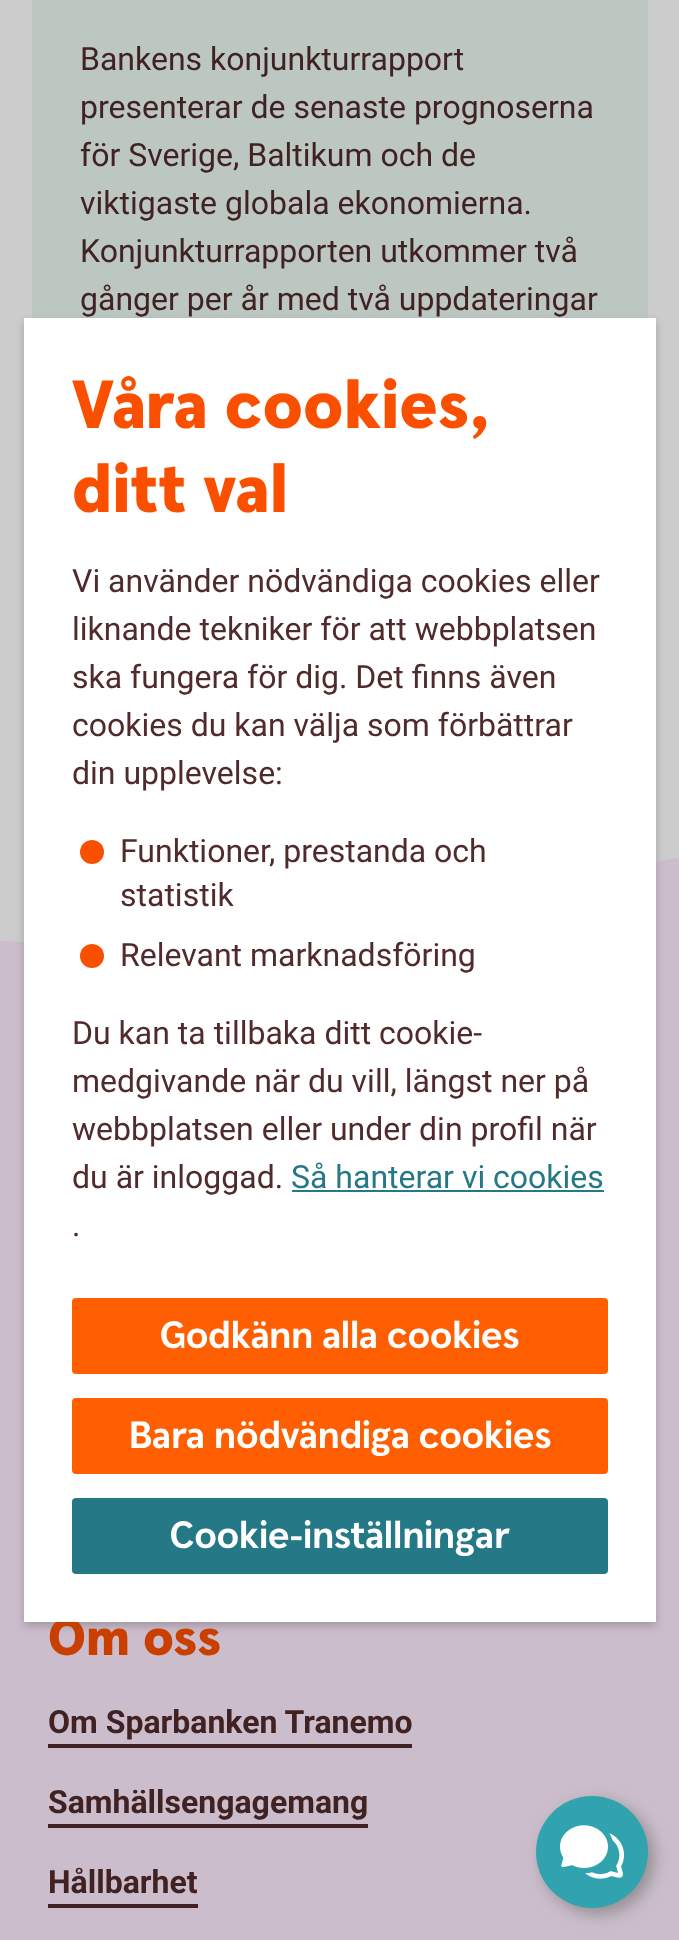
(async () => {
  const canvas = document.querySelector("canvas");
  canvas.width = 679;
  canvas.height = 1940;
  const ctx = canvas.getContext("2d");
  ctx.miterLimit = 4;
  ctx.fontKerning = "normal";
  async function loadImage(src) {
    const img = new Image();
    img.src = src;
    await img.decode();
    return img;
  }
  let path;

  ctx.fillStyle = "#cccccc";
  ctx.fillRect(0, 0, 679, 1940);
  ctx.fillStyle = "#bdc7c2";
  ctx.fillRect(32, 0, 616, 318);
  ctx.fillStyle = "#ccbdcc";
  path = new Path2D("M618 885C634 882 644 866 660 861C666 860 672 858 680 858V989H0V941C48 942 96 955 126 983C182 959 144 953 164 931C190 910 225 897 260 894C290 896 314 880 334 859C374 814 406 789 469 813C487 819 502 825 516 836C536 852 540 860 572 874C586 880 602 886 618 885Z");
  ctx.fill(path);
  ctx.fillRect(0, 989, 679, 951);
  ctx.fillStyle = "rgba(0, 0, 0, 0.2)";
  ctx.filter = "blur(4px)";
  ctx.beginPath();
  ctx.rect(24, 322, 632, 1304);
  ctx.fill();
  ctx.filter = "none";
  for (const [x, y, w, h, color] of [
    [48, 1744, 364, 4, "#412222"],
    [48, 1824, 320, 4, "#412222"],
    [48, 1904, 150, 4, "#412222"],
  ]) {
    ctx.fillStyle = color;
    ctx.fillRect(x, y, w, h);
  }
  ctx.fillStyle = "#908e8e";
  ctx.filter = "blur(8px)";
  ctx.beginPath();
  ctx.roundRect(542, 1802, 112, 112, 56);
  ctx.fill();
  ctx.filter = "none";
  ctx.fillStyle = "#31a3ae";
  ctx.beginPath();
  ctx.arc(592, 1852, 56, 0, Math.PI * 2);
  ctx.fill();
  ctx.drawImage(await loadImage("img/1.png"), 560, 1825, 64, 54);
  ctx.font = "32px Roboto";
  ctx.fillStyle = "#412222";
  for (const [text, x, y] of [
    ["Bankens konjunkturrapport", 80, 70],
    ["presenterar de senaste prognoserna", 80, 118],
    ["för Sverige, Baltikum och de", 80, 166],
    ["viktigaste globala ekonomierna.", 80, 214],
    ["Konjunkturrapporten utkommer två", 80, 262],
    ["gånger per år med två uppdateringar", 80, 310],
  ]) {
    ctx.fillText(text, x, y);
  }
  ctx.font = "900 52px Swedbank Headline";
  ctx.fillStyle = "#c93f00";
  ctx.fillText("Om oss", 48, 1655);
  ctx.fillStyle = "#ffffff";
  ctx.fillRect(24, 318, 632, 1304);
  ctx.fillStyle = "#257886";
  ctx.beginPath();
  ctx.roundRect(72, 1498, 536, 76, 4);
  ctx.fill();
  ctx.font = "bold 38px Swedbank Headline";
  ctx.fillStyle = "#ffffff";
  ctx.fillText("Cookie-inställningar", 170, 1548);
  ctx.fillStyle = "#ff5f00";
  ctx.beginPath();
  ctx.roundRect(72, 1398, 536, 76, 4);
  ctx.fill();
  ctx.fillStyle = "#ffffff";
  ctx.fillText("Bara nödvändiga cookies", 129, 1448);
  ctx.fillStyle = "#ff5f00";
  ctx.beginPath();
  ctx.roundRect(72, 1298, 536, 76, 4);
  ctx.fill();
  ctx.fillStyle = "#ffffff";
  ctx.fillText("Godkänn alla cookies", 160, 1348);
  ctx.font = "32px Roboto";
  ctx.fillStyle = "#257886";
  ctx.fillText("Så hanterar vi cookies", 291, 1188);
  ctx.fillRect(292, 1190, 312, 2);
  ctx.fillStyle = "#512b2b";
  for (const [text, x, y] of [
    [".", 72, 1236],
    ["du är inloggad.", 72, 1188],
    ["webbplatsen eller under din profil när", 72, 1140],
    ["medgivande när du vill, längst ner på", 72, 1092],
    ["Du kan ta tillbaka ditt cookie-", 72, 1044],
  ]) {
    ctx.fillText(text, x, y);
  }
  ctx.fillStyle = "#fb4f00";
  ctx.beginPath();
  ctx.arc(92, 956, 12, 0, Math.PI * 2);
  ctx.fill();
  ctx.fillStyle = "#512b2b";
  ctx.fillText("Relevant marknadsföring", 120, 966);
  ctx.fillStyle = "#fb4f00";
  ctx.beginPath();
  ctx.arc(92, 852, 12, 0, Math.PI * 2);
  ctx.fill();
  ctx.fillStyle = "#512b2b";
  for (const [text, x, y] of [
    ["statistik", 120, 906],
    ["Funktioner, prestanda och", 120, 862],
    ["din upplevelse:", 72, 784],
    ["cookies du kan välja som förbättrar", 72, 736],
    ["ska fungera för dig. Det finns även", 72, 688],
    ["liknande tekniker för att webbplatsen", 72, 640],
    ["Vi använder nödvändiga cookies eller", 72, 592],
  ]) {
    ctx.fillText(text, x, y);
  }
  ctx.font = "900 68px Swedbank Headline";
  ctx.fillStyle = "#fb4f00";
  ctx.fillText("ditt val", 72, 512);
  ctx.fillText("Våra cookies,", 72, 428);
  ctx.font = "bold 32px Roboto";
  ctx.fillStyle = "#412222";
  for (const [text, x, y] of [
    ["Om Sparbanken Tranemo", 48, 1733],
    ["Samhällsengagemang", 48, 1813],
    ["Hållbarhet", 48, 1893],
  ]) {
    ctx.fillText(text, x, y);
  }
})();
